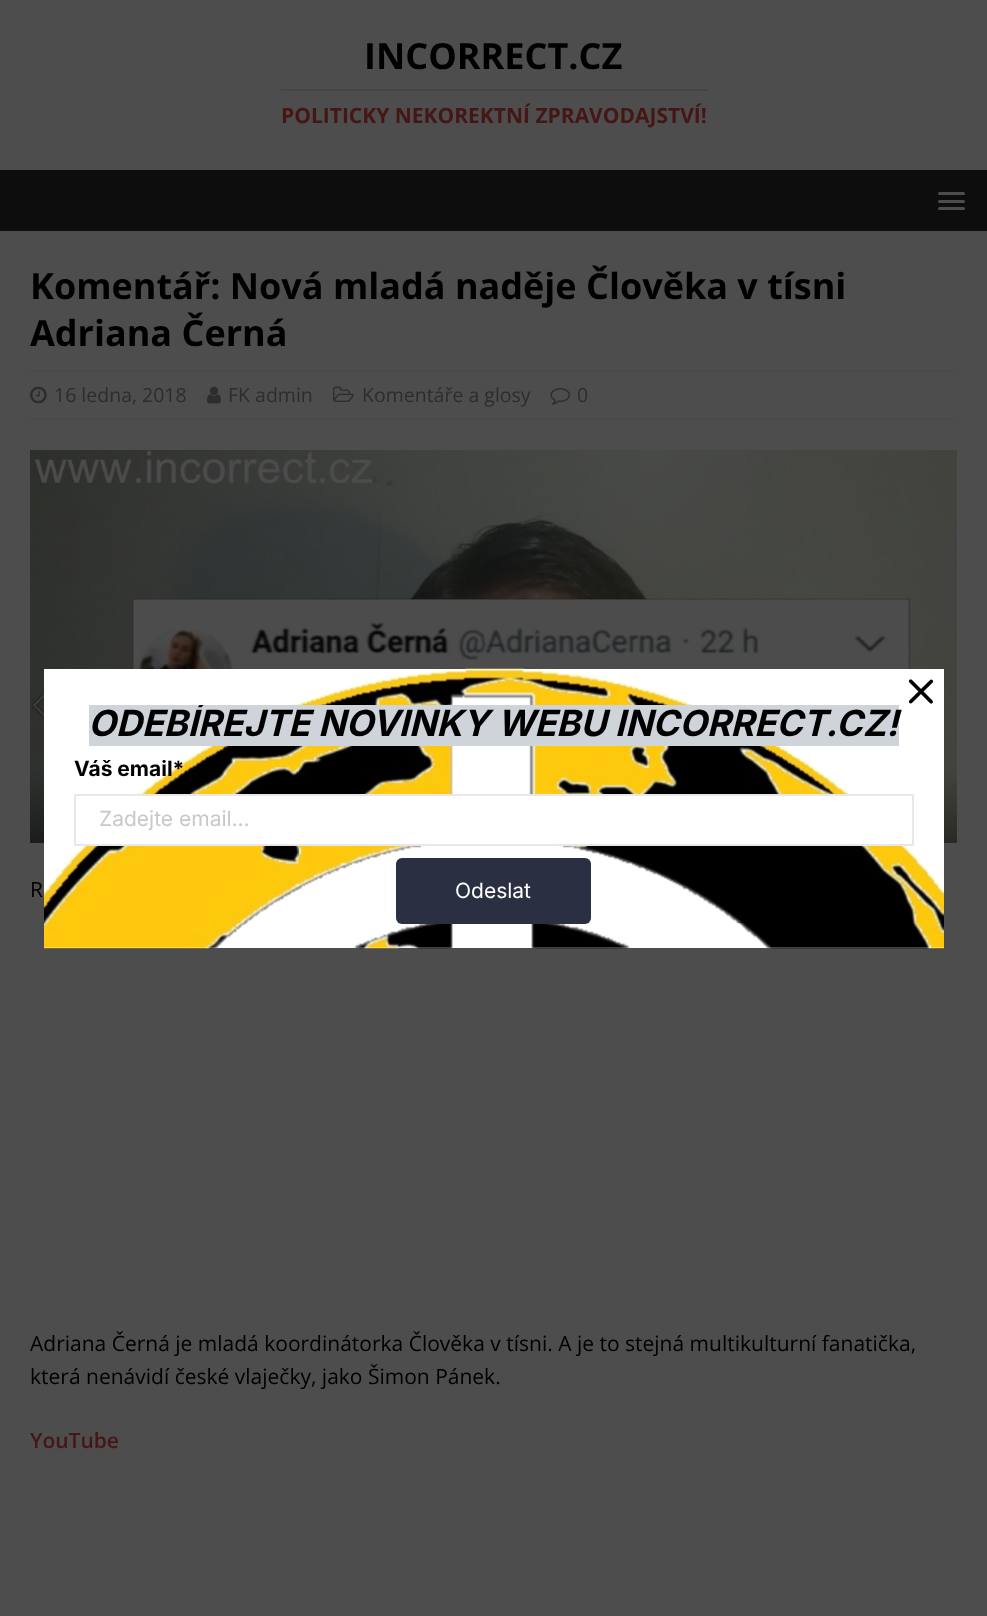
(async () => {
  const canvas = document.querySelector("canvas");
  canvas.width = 987;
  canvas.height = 1616;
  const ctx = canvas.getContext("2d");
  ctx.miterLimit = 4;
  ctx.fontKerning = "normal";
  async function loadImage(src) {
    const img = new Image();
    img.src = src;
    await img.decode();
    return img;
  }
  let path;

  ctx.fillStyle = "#4d4d4d";
  ctx.fillRect(0, 0, 987, 1616);
  ctx.fillStyle = "#454545";
  ctx.fillRect(281, 89, 426, 2);
  ctx.fillStyle = "#0d0d0d";
  ctx.fillRect(0, 170, 987, 61);
  ctx.fillStyle = "#4d4d4d";
  ctx.beginPath();
  ctx.roundRect(938, 192, 27, 3, 1.5);
  ctx.fill();
  ctx.beginPath();
  ctx.roundRect(938, 200, 27, 3, 1.5);
  ctx.fill();
  ctx.beginPath();
  ctx.roundRect(938, 207, 27, 3, 1.5);
  ctx.fill();
  path = new Path2D("M30 371H957");
  ctx.strokeStyle = "#474747";
  ctx.lineWidth = 1.5;
  ctx.setLineDash([1.5, 1.5]);
  ctx.stroke(path);
  path = new Path2D("M30 419H957");
  ctx.stroke(path);
  ctx.drawImage(await loadImage("img/1.png"), 30, 386, 17, 18);
  ctx.drawImage(await loadImage("img/2.png"), 207, 386, 14, 18);
  ctx.drawImage(await loadImage("img/3.png"), 333, 386, 21, 16);
  ctx.drawImage(await loadImage("img/4.png"), 550, 388, 20, 17);
  ctx.drawImage(await loadImage("img/5.png"), 30, 450, 927, 393);
  ctx.fillStyle = "#ffffff";
  ctx.fillRect(44, 669, 900, 279);
  ctx.drawImage(await loadImage("img/6.png"), 44, 668, 900, 281);
  ctx.drawImage(await loadImage("img/7.png"), 908, 679, 26, 25);
  ctx.fillStyle = "#ced4d9";
  ctx.fillRect(89, 705, 810, 41);
  ctx.fillStyle = "#ffffff";
  ctx.fillRect(85, 796, 819, 48);
  ctx.strokeStyle = "#e8e8e8";
  ctx.lineWidth = 2;
  ctx.setLineDash([]);
  ctx.strokeRect(75, 795, 838, 50);
  ctx.fillStyle = "#2a3042";
  ctx.beginPath();
  ctx.roundRect(396, 858, 195, 66, 6);
  ctx.fill();
  ctx.font = "bold 36px Open Sans";
  ctx.fillStyle = "#000000";
  ctx.fillText("INCORRECT.CZ", 364, 69);
  ctx.font = "bold 21px Open Sans";
  ctx.fillStyle = "#451615";
  ctx.fillText("POLITICKY NEKOREKTNÍ ZPRAVODAJSTVÍ!", 281, 123);
  ctx.font = "bold 36px Open Sans";
  ctx.fillStyle = "#000000";
  ctx.fillText("Komentář: Nová mladá naděje Člověka v tísni", 30, 299);
  ctx.fillText("Adriana Černá", 30, 346);
  ctx.font = "19.5px Open Sans";
  ctx.fillStyle = "#2d2d2d";
  for (const [text, x, y] of [
    ["16 ledna, 2018", 54, 402],
    ["FK admin", 228, 402],
    ["Komentáře a glosy", 362, 402],
    ["0", 577, 402],
  ]) {
    ctx.fillText(text, x, y);
  }
  ctx.font = "21px Open Sans";
  ctx.fillStyle = "#000000";
  for (const [text, x, y] of [
    ["R", 30, 897],
    ["Adriana Černá je mladá koordinátorka Člověka v tísni. A je to stejná multikulturní fanatička,", 30, 1351],
    ["která nenávidí české vlaječky, jako Šimon Pánek.", 30, 1384],
  ]) {
    ctx.fillText(text, x, y);
  }
  ctx.font = "600 21px Open Sans";
  ctx.fillStyle = "#451615";
  ctx.fillText("YouTube", 30, 1448);
  ctx.save();
  ctx.beginPath();
  ctx.rect(68, 705, 852, 219);
  ctx.clip();
  ctx.font = "italic bold 36px Inter";
  ctx.fillStyle = "#000000";
  ctx.fillText("ODEBÍREJTE", 88, 736);
  ctx.restore();
  ctx.font = "italic bold 36px Inter";
  ctx.fillStyle = "#000000";
  ctx.fillText("NOVINKY WEBU INCORRECT.CZ!", 318, 736);
  ctx.font = "bold 21px Inter";
  ctx.fillText("Váš email*", 74, 776);
  ctx.font = "21px Inter";
  ctx.fillStyle = "#c7c8c7";
  ctx.fillText("Zadejte email…", 99, 826);
  ctx.fillStyle = "#ffffff";
  ctx.fillText("Odeslat", 455, 898);
})();
